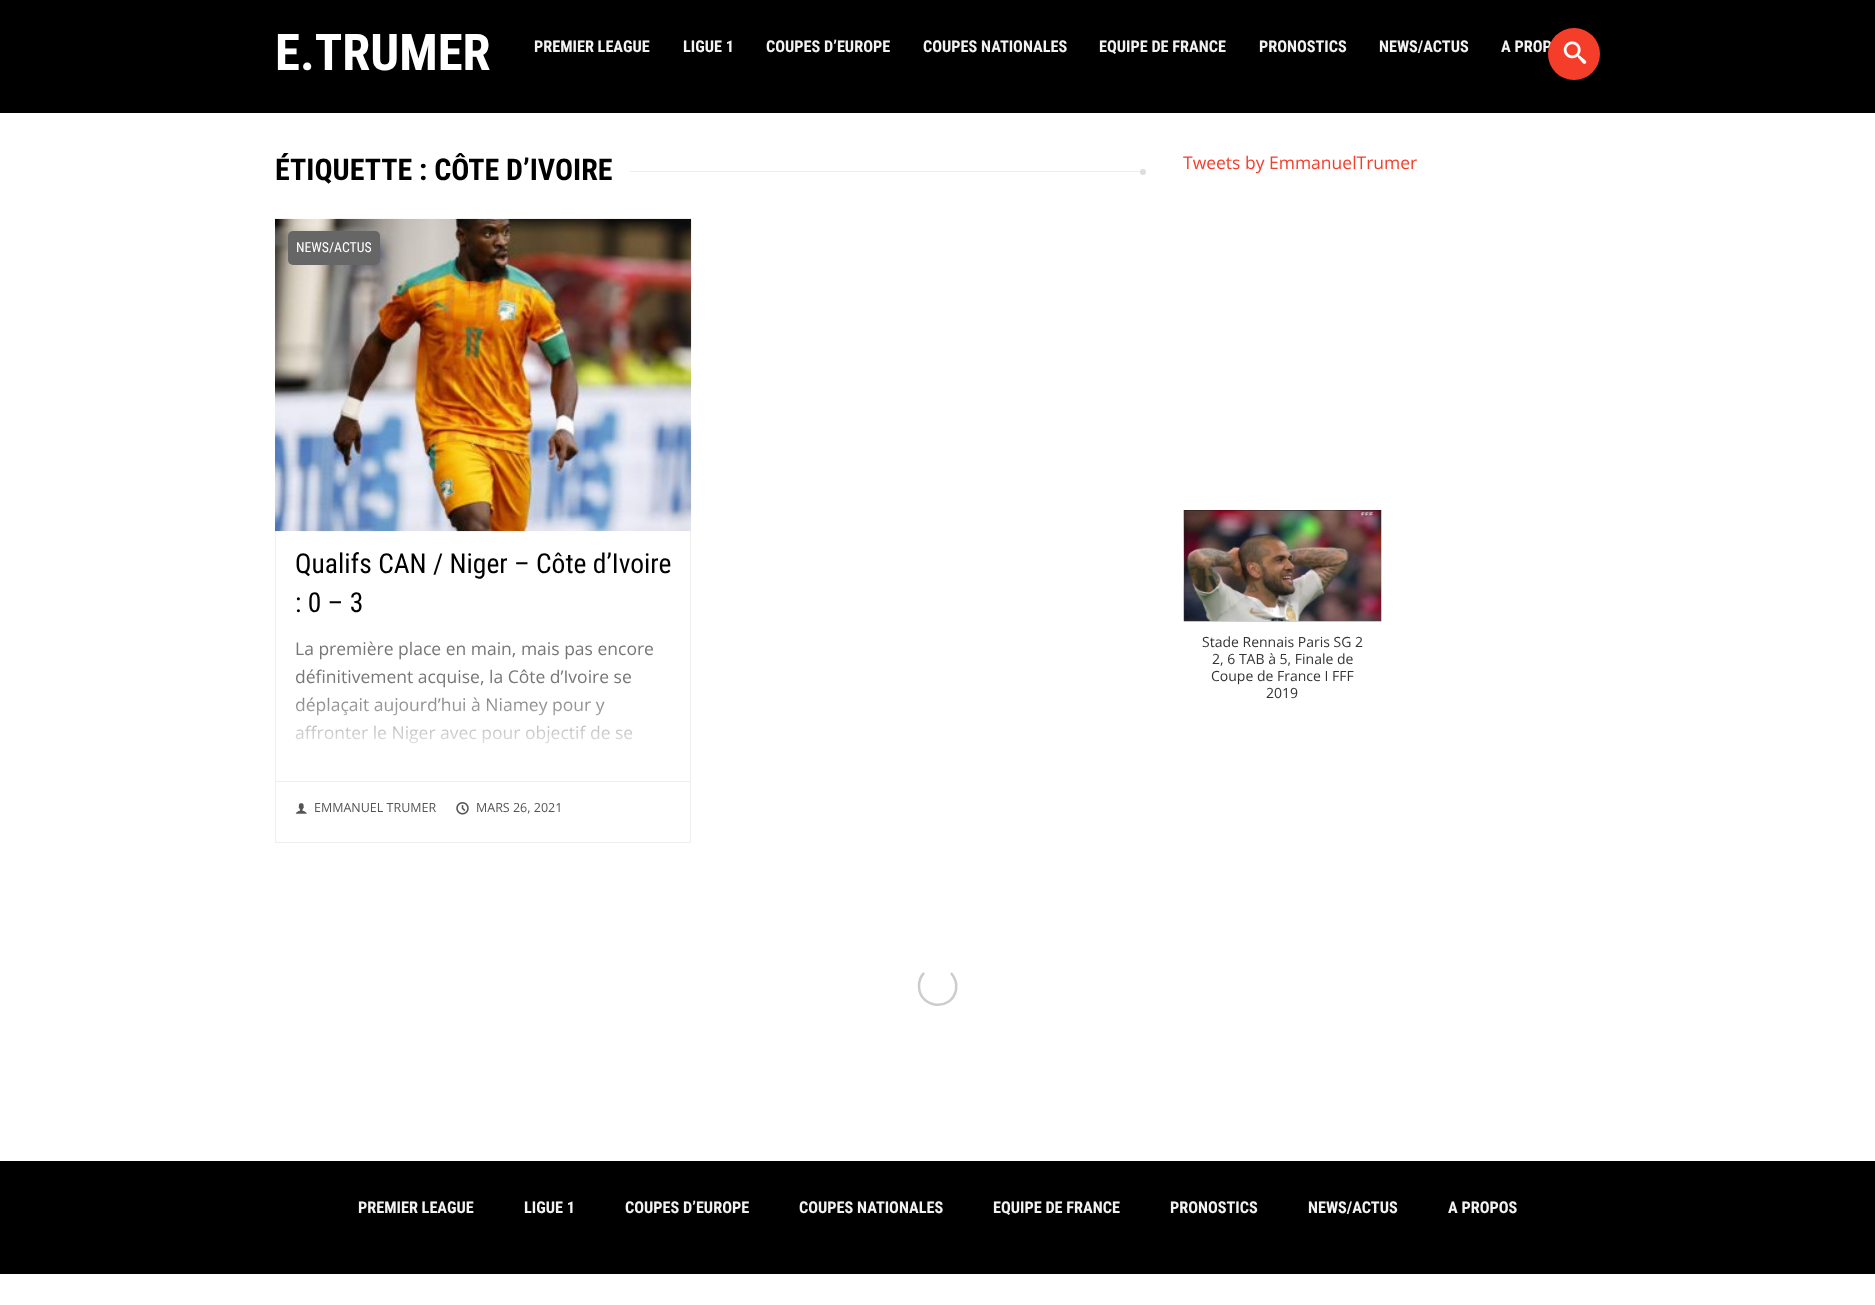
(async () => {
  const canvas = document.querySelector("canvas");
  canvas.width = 1875;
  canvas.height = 1305;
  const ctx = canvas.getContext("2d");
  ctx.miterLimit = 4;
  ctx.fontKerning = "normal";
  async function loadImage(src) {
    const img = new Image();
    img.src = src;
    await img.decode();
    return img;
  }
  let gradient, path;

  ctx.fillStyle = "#ffffff";
  ctx.fillRect(0, 0, 1875, 1305);
  ctx.fillStyle = "#000000";
  ctx.fillRect(0, 0, 1875, 113);
  ctx.fillStyle = "#eeeeee";
  ctx.fillRect(630, 171, 516, 1);
  ctx.fillStyle = "#dddddd";
  ctx.beginPath();
  ctx.arc(1143, 172, 3, 0, Math.PI * 2);
  ctx.fill();
  ctx.strokeStyle = "#eeeeee";
  ctx.strokeRect(275.5, 530.5, 415, 312);
  ctx.drawImage(await loadImage("img/2.png"), 275, 218, 417, 314);
  ctx.fillStyle = "#666666";
  ctx.beginPath();
  ctx.roundRect(288, 231, 92, 34, 5);
  ctx.fill();
  ctx.fillStyle = "#eeeeee";
  ctx.fillRect(276, 781, 414, 1);
  ctx.drawImage(await loadImage("img/3.png"), 295, 803, 12, 11);
  ctx.drawImage(await loadImage("img/4.png"), 456, 802, 13, 13);
  ctx.drawImage(await loadImage("img/5.png"), 1183, 510, 199, 112);
  path = new Path2D("M951 973C955 977.5 957 984 956 990C951.5 1012 919 1008.5 919 986C919 981.5 920.5 976.5 924 973");
  ctx.strokeStyle = "#cccccc";
  ctx.lineWidth = 2.5;
  ctx.stroke(path);
  ctx.fillStyle = "#000000";
  ctx.fillRect(0, 1161, 1875, 113);
  ctx.font = "bold 50.75px Roboto Condensed";
  ctx.fillStyle = "#ffffff";
  ctx.fillText("E.TRUMER", 275, 70);
  ctx.font = "bold 16.25px Roboto Condensed";
  ctx.fillStyle = "#f2f2f2";
  for (const [text, x, y] of [
    ["PREMIER LEAGUE", 534, 52],
    ["LIGUE 1", 683, 52],
    ["COUPES D’EUROPE", 766, 52],
    ["COUPES NATIONALES", 923, 52],
    ["EQUIPE DE FRANCE", 1099, 52],
    ["PRONOSTICS", 1259, 52],
    ["NEWS/ACTUS", 1379, 52],
    ["A PROP", 1501, 52],
  ]) {
    ctx.fillText(text, x, y);
  }
  ctx.fillStyle = "#f53e2a";
  ctx.beginPath();
  ctx.arc(1574, 54, 26, 0, Math.PI * 2);
  ctx.fill();
  ctx.drawImage(await loadImage("img/1.png"), 1563, 41, 24, 23);
  ctx.font = "bold 30px Roboto Condensed";
  ctx.fillStyle = "#000000";
  ctx.fillText("ÉTIQUETTE : CÔTE D’IVOIRE", 275, 180);
  ctx.font = "13.75px Roboto Condensed";
  ctx.fillStyle = "#ffffff";
  ctx.fillText("NEWS/ACTUS", 296, 252);
  ctx.font = "27.5px Roboto Condensed";
  ctx.fillStyle = "#000000";
  ctx.fillText("Qualifs CAN / Niger – Côte d’Ivoire", 295, 573);
  ctx.fillText(": 0 – 3", 295, 612);
  ctx.font = "17.5px Open Sans";
  ctx.fillStyle = "#777777";
  for (const [text, x, y] of [
    ["La première place en main, mais pas encore", 295, 655],
    ["définitivement acquise, la Côte d’Ivoire se", 295, 683],
    ["déplaçait aujourd’hui à Niamey pour y", 295, 711],
    ["affronter le Niger avec pour objectif de se", 295, 739],
  ]) {
    ctx.fillText(text, x, y);
  }
  gradient = ctx.createLinearGradient(483, 691, 483, 841);
  gradient.addColorStop(0, "rgba(255, 255, 255, 0)");
  gradient.addColorStop(0.45, "#ffffff");
  gradient.addColorStop(1, "#ffffff");
  ctx.fillStyle = gradient;
  ctx.fillRect(295, 697, 338, 47);
  ctx.font = "12.5px Open Sans";
  ctx.fillStyle = "#555555";
  ctx.fillText("EMMANUEL TRUMER", 314, 812);
  ctx.fillText("MARS 26, 2021", 476, 812);
  ctx.font = "17.5px Open Sans";
  ctx.fillStyle = "#f53e2a";
  ctx.fillText("Tweets by EmmanuelTrumer", 1183, 169);
  ctx.font = "14px Open Sans";
  ctx.fillStyle = "#333333";
  for (const [text, x, y] of [
    ["Stade Rennais Paris SG 2", 1202, 647],
    ["2, 6 TAB à 5, Finale de", 1212, 664],
    ["Coupe de France I FFF", 1211, 681],
    ["2019", 1266, 698],
  ]) {
    ctx.fillText(text, x, y);
  }
  ctx.font = "bold 16.25px Roboto Condensed";
  ctx.fillStyle = "#f2f2f2";
  for (const [text, x, y] of [
    ["PREMIER LEAGUE", 358, 1213],
    ["LIGUE 1", 524, 1213],
    ["COUPES D’EUROPE", 625, 1213],
    ["COUPES NATIONALES", 799, 1213],
    ["EQUIPE DE FRANCE", 993, 1213],
    ["PRONOSTICS", 1170, 1213],
    ["NEWS/ACTUS", 1308, 1213],
    ["A PROPOS", 1448, 1213],
  ]) {
    ctx.fillText(text, x, y);
  }
})();
